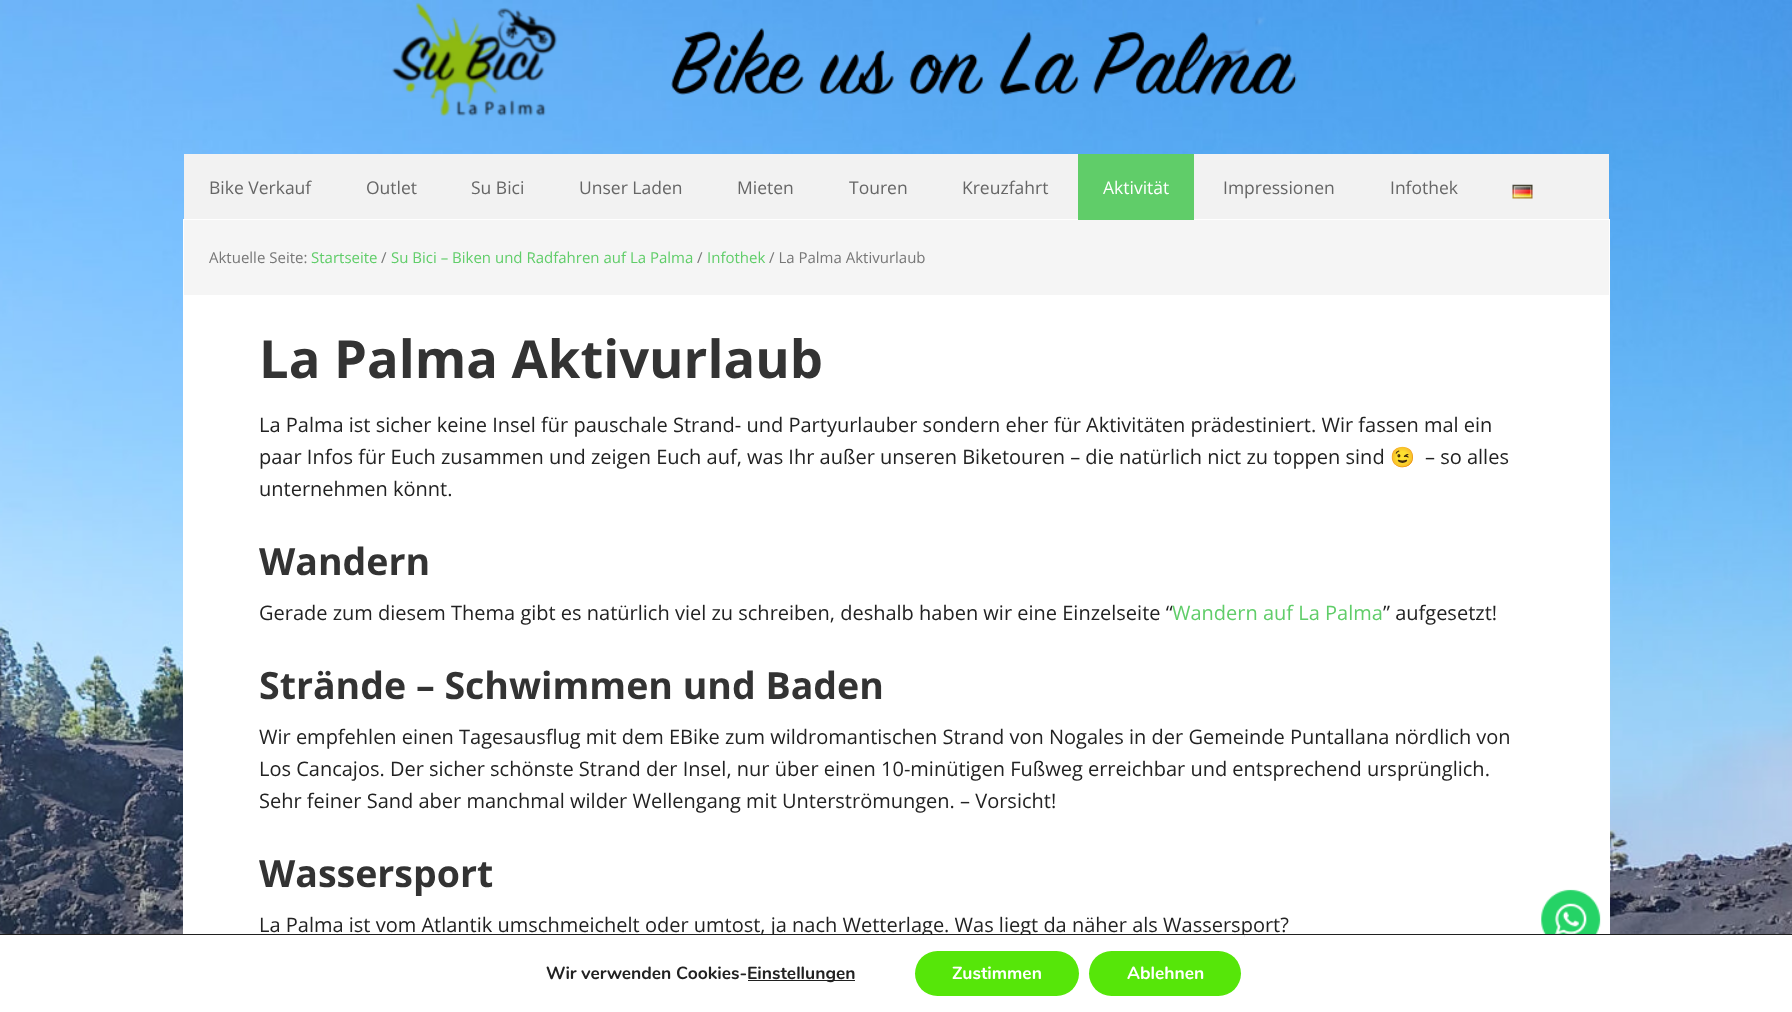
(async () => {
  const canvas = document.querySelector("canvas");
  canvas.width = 1792;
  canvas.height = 1012;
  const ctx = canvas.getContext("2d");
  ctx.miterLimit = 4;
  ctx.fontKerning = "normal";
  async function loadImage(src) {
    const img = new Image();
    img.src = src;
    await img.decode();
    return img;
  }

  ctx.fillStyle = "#ffffff";
  ctx.fillRect(0, 0, 1792, 1012);
  ctx.drawImage(await loadImage("img/1.png"), 0, 0, 1792, 934);
  ctx.drawImage(await loadImage("img/2.png"), 391, 2, 906, 115);
  ctx.fillStyle = "#f2f2f2";
  ctx.fillRect(184, 154, 1425, 65);
  ctx.strokeStyle = "#ffffff";
  ctx.strokeRect(183.5, 219.5, 1426, 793);
  ctx.fillStyle = "#60cd69";
  ctx.fillRect(1078, 154, 116, 66);
  ctx.drawImage(await loadImage("img/3.png"), 1512, 184, 21, 15);
  ctx.fillStyle = "#ffffff";
  ctx.fillRect(184, 295, 1425, 639);
  ctx.fillStyle = "#f5f5f5";
  ctx.fillRect(184, 220, 1425, 75);
  ctx.drawImage(await loadImage("img/4.png"), 1541, 889, 60, 45);
  ctx.fillStyle = "#202020";
  ctx.fillRect(748, 980, 107, 1);
  ctx.fillStyle = "#56e609";
  ctx.beginPath();
  ctx.roundRect(915, 951, 164, 45, 22.5);
  ctx.fill();
  ctx.beginPath();
  ctx.roundRect(1089, 951, 152, 45, 22.5);
  ctx.fill();
  ctx.font = "17.5px Open Sans";
  ctx.fillStyle = "#666666";
  for (const [text, x, y] of [
    ["Bike Verkauf", 209, 194],
    ["Outlet", 366, 194],
    ["Su Bici", 471, 194],
    ["Unser Laden", 579, 194],
    ["Mieten", 737, 194],
    ["Touren", 849, 194],
    ["Kreuzfahrt", 962, 194],
  ]) {
    ctx.fillText(text, x, y);
  }
  ctx.fillStyle = "#ffffff";
  ctx.fillText("Aktivität", 1103, 194);
  ctx.fillStyle = "#666666";
  ctx.fillText("Impressionen", 1223, 194);
  ctx.fillText("Infothek", 1390, 194);
  ctx.font = "15px Open Sans";
  ctx.fillStyle = "#777777";
  ctx.fillText("Aktuelle Seite:", 209, 263);
  ctx.fillStyle = "#60cd69";
  ctx.fillText("Startseite", 311, 263);
  ctx.fillStyle = "#777777";
  ctx.fillText("/", 381, 263);
  ctx.fillStyle = "#60cd69";
  ctx.fillText("Su Bici – Biken und Radfahren auf La Palma", 391, 263);
  ctx.fillStyle = "#777777";
  ctx.fillText("/", 697, 263);
  ctx.fillStyle = "#60cd69";
  ctx.fillText("Infothek", 707, 263);
  ctx.fillStyle = "#777777";
  ctx.fillText("/ La Palma Aktivurlaub", 769, 263);
  ctx.font = "bold 52.5px Open Sans";
  ctx.fillStyle = "#333333";
  ctx.fillText("La Palma Aktivurlaub", 259, 378);
  ctx.font = "20px Open Sans";
  ctx.fillStyle = "#222222";
  ctx.fillText("La Palma ist sicher keine Insel für pauschale Strand- und Partyurlauber sondern eher für Aktivitäten prädestiniert. Wir fassen mal ein", 259, 432);
  ctx.fillText("paar Infos für Euch zusammen und zeigen Euch auf, was Ihr außer unseren Biketouren – die natürlich nict zu toppen sind", 259, 464);
  ctx.font = "20px Noto Color Emoji";
  ctx.fillText("😉", 1390, 464);
  ctx.font = "20px Open Sans";
  ctx.fillText("– so alles", 1425, 464);
  ctx.fillText("unternehmen könnt.", 259, 496);
  ctx.font = "bold 37.5px Open Sans";
  ctx.fillStyle = "#333333";
  ctx.fillText("Wandern", 259, 575);
  ctx.font = "20px Open Sans";
  ctx.fillStyle = "#222222";
  ctx.fillText("Gerade zum diesem Thema gibt es natürlich viel zu schreiben, deshalb haben wir eine Einzelseite “", 259, 620);
  ctx.fillStyle = "#60cd69";
  ctx.fillText("Wandern auf La Palma", 1172, 620);
  ctx.fillStyle = "#222222";
  ctx.fillText("” aufgesetzt!", 1383, 620);
  ctx.font = "bold 37.5px Open Sans";
  ctx.fillStyle = "#333333";
  ctx.fillText("Strände – Schwimmen und Baden", 259, 699);
  ctx.font = "20px Open Sans";
  ctx.fillStyle = "#222222";
  for (const [text, x, y] of [
    ["Wir empfehlen einen Tagesausflug mit dem EBike zum wildromantischen Strand von Nogales in der Gemeinde Puntallana nördlich von", 259, 744],
    ["Los Cancajos. Der sicher schönste Strand der Insel, nur über einen 10-minütigen Fußweg erreichbar und entsprechend ursprünglich.", 259, 776],
    ["Sehr feiner Sand aber manchmal wilder Wellengang mit Unterströmungen. – Vorsicht!", 259, 808],
  ]) {
    ctx.fillText(text, x, y);
  }
  ctx.font = "bold 37.5px Open Sans";
  ctx.fillStyle = "#333333";
  ctx.fillText("Wassersport", 259, 887);
  ctx.font = "20px Open Sans";
  ctx.fillStyle = "#222222";
  ctx.fillText("La Palma ist vom Atlantik umschmeichelt oder umtost, ja nach Wetterlage. Was liegt da näher als Wassersport?", 259, 932);
  ctx.fillStyle = "#ffffff";
  ctx.fillRect(769, 935, 475, 2);
  ctx.fillStyle = "#202020";
  ctx.fillRect(0, 934, 1792, 1);
  ctx.font = "bold 17.5px Nunito";
  ctx.fillStyle = "#222222";
  ctx.fillText("Wir verwenden Cookies-", 546, 979);
  ctx.fillText("Einstellungen", 747, 979);
  ctx.fillStyle = "#ffffff";
  ctx.fillText("Zustimmen", 952, 979);
  ctx.fillText("Ablehnen", 1127, 979);
})();
